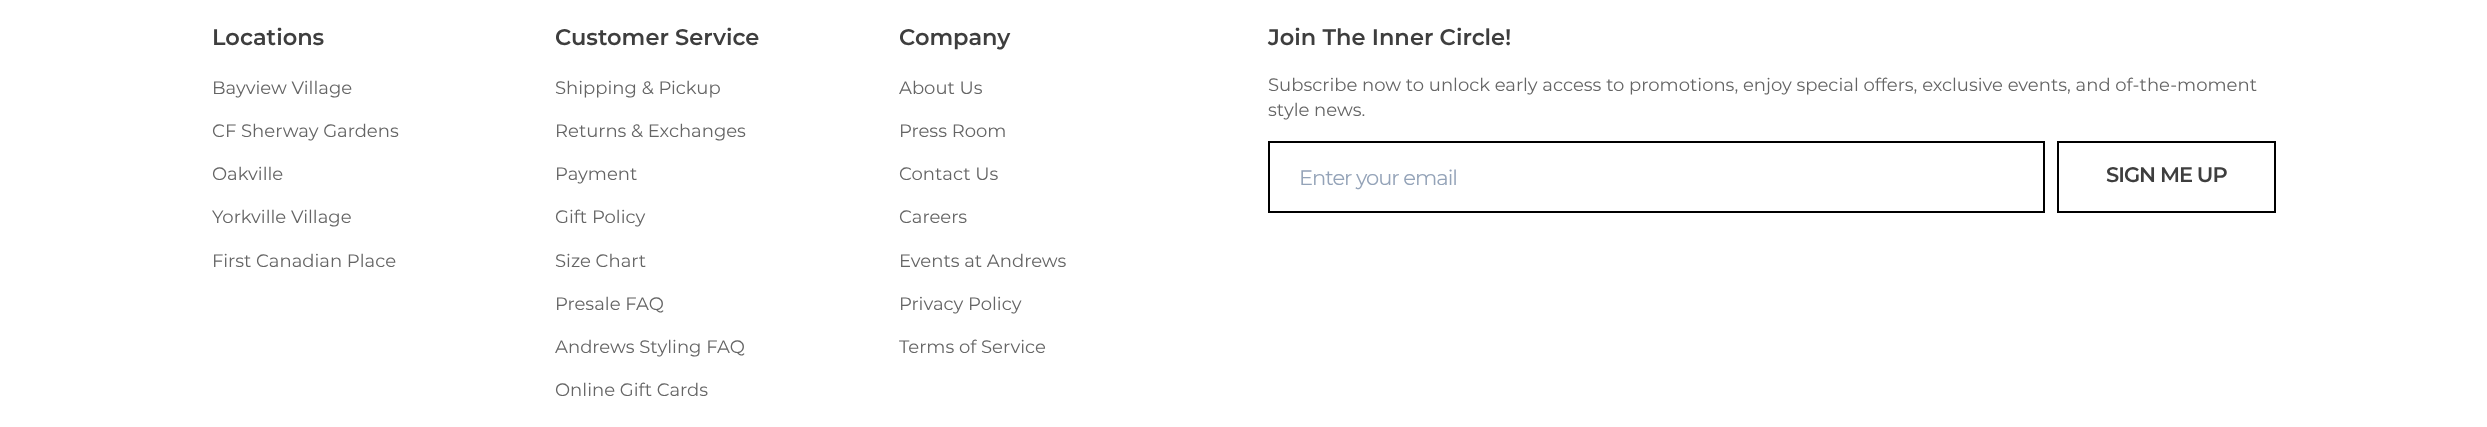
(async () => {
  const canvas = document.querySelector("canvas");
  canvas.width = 2487;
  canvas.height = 427;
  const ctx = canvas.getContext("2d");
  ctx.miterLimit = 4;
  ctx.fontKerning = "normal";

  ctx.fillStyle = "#ffffff";
  ctx.fillRect(0, 0, 2487, 427);
  ctx.strokeStyle = "#000000";
  ctx.lineWidth = 2;
  ctx.strokeRect(1269, 142, 775, 70);
  ctx.strokeRect(2058, 142, 217, 70);
  ctx.font = "600 22.5px Montserrat";
  ctx.fillStyle = "#3e3e3e";
  ctx.fillText("Locations", 212, 45);
  ctx.font = "18px Montserrat";
  ctx.fillStyle = "#656565";
  for (const [text, x, y] of [
    ["Bayview Village", 212, 94],
    ["CF Sherway Gardens", 212, 137],
    ["Oakville", 212, 180],
    ["Yorkville Village", 212, 223],
    ["First Canadian Place", 212, 267],
  ]) {
    ctx.fillText(text, x, y);
  }
  ctx.font = "600 22.5px Montserrat";
  ctx.fillStyle = "#3e3e3e";
  ctx.fillText("Customer Service", 555, 45);
  ctx.font = "18px Montserrat";
  ctx.fillStyle = "#656565";
  for (const [text, x, y] of [
    ["Shipping & Pickup", 555, 94],
    ["Returns & Exchanges", 555, 137],
    ["Payment", 555, 180],
    ["Gift Policy", 555, 223],
    ["Size Chart", 555, 267],
    ["Presale FAQ", 555, 310],
    ["Andrews Styling FAQ", 555, 353],
    ["Online Gift Cards", 555, 396],
  ]) {
    ctx.fillText(text, x, y);
  }
  ctx.font = "600 22.5px Montserrat";
  ctx.fillStyle = "#3e3e3e";
  ctx.fillText("Company", 899, 45);
  ctx.font = "18px Montserrat";
  ctx.fillStyle = "#656565";
  for (const [text, x, y] of [
    ["About Us", 899, 94],
    ["Press Room", 899, 137],
    ["Contact Us", 899, 180],
    ["Careers", 899, 223],
    ["Events at Andrews", 899, 267],
    ["Privacy Policy", 899, 310],
    ["Terms of Service", 899, 353],
  ]) {
    ctx.fillText(text, x, y);
  }
  ctx.font = "600 22.5px Montserrat";
  ctx.fillStyle = "#3e3e3e";
  ctx.fillText("Join The Inner Circle!", 1268, 45);
  ctx.font = "18px Montserrat";
  ctx.fillStyle = "#656565";
  ctx.fillText("Subscribe now to unlock early access to promotions, enjoy special offers, exclusive events, and of-the-moment", 1268, 91);
  ctx.fillText("style news.", 1268, 116);
  ctx.letterSpacing = "-1px";
  ctx.font = "21px Montserrat";
  ctx.fillStyle = "#94a3b8";
  ctx.fillText("Enter your email", 1299, 185);
  ctx.font = "600 21px Montserrat";
  ctx.fillStyle = "#3e3e3e";
  ctx.fillText("SIGN ME UP", 2106, 182);
})();
